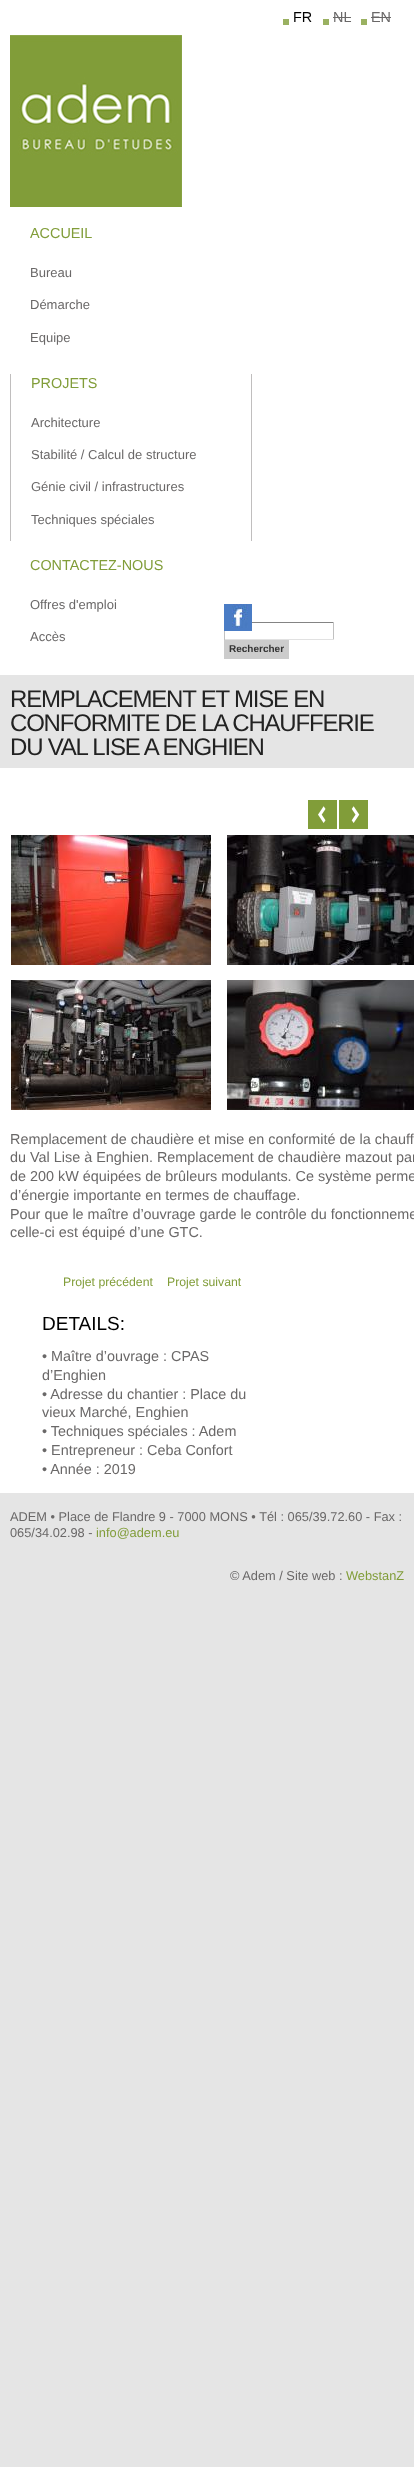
(async () => {
  const canvas = document.querySelector("canvas");
  canvas.width = 414;
  canvas.height = 2467;
  const ctx = canvas.getContext("2d");
  ctx.miterLimit = 4;
  ctx.fontKerning = "normal";
  async function loadImage(src) {
    const img = new Image();
    img.src = src;
    await img.decode();
    return img;
  }

  ctx.fillStyle = "#e5e5e5";
  ctx.fillRect(0, 0, 414, 2467);
  for (const [x, y, w, h, color] of [
    [0, 0, 414, 675, "#ffffff"],
    [283, 19, 6, 6, "#9ab161"],
    [323, 19, 6, 6, "#9ab161"],
    [333, 17, 18, 1, "#6a6868"],
    [361, 19, 6, 6, "#9ab161"],
    [371, 17, 20, 1, "#6a6868"],
  ]) {
    ctx.fillStyle = color;
    ctx.fillRect(x, y, w, h);
  }
  ctx.drawImage(await loadImage("img/1.png"), 10, 35, 172, 172);
  ctx.fillStyle = "#c0bebe";
  ctx.fillRect(251, 374, 1, 167);
  ctx.fillRect(10, 374, 1, 167);
  ctx.drawImage(await loadImage("img/2.png"), 224, 604, 28, 27);
  for (const [x, y, w, h, color] of [
    [252, 622, 82, 1, "#848484"],
    [333, 622, 1, 18, "#c1c1c1"],
    [224, 639, 110, 1, "#e1e1e1"],
    [224, 631, 1, 9, "#c1c1c1"],
    [224, 640, 65, 19, "#cccccc"],
    [0, 768, 414, 725, "#ffffff"],
  ]) {
    ctx.fillStyle = color;
    ctx.fillRect(x, y, w, h);
  }
  ctx.drawImage(await loadImage("img/3.png"), 308, 800, 29, 29);
  ctx.drawImage(await loadImage("img/4.png"), 339, 800, 29, 29);
  ctx.drawImage(await loadImage("img/5.png"), 11, 835, 200, 130);
  ctx.drawImage(await loadImage("img/6.png"), 11, 980, 200, 130);
  ctx.drawImage(await loadImage("img/7.png"), 227, 835, 187, 130);
  ctx.drawImage(await loadImage("img/8.png"), 227, 980, 187, 130);
  ctx.font = "14.4px Liberation Sans";
  ctx.fillStyle = "#000000";
  ctx.fillText("FR", 293, 22);
  ctx.fillStyle = "#6a6868";
  ctx.fillText("NL", 333, 22);
  ctx.fillText("EN", 371, 22);
  ctx.fillStyle = "#819d39";
  ctx.fillText("ACCUEIL", 30, 238);
  ctx.font = "13px Liberation Sans";
  ctx.fillStyle = "#6a6868";
  for (const [text, x, y] of [
    ["Bureau", 30, 277],
    ["Démarche", 30, 309],
    ["Equipe", 30, 342],
  ]) {
    ctx.fillText(text, x, y);
  }
  ctx.font = "14.4px Liberation Sans";
  ctx.fillStyle = "#819d39";
  ctx.fillText("PROJETS", 31, 388);
  ctx.font = "13px Liberation Sans";
  ctx.fillStyle = "#6a6868";
  for (const [text, x, y] of [
    ["Architecture", 31, 427],
    ["Stabilité / Calcul de structure", 31, 459],
    ["Génie civil / infrastructures", 31, 491],
    ["Techniques spéciales", 31, 524],
  ]) {
    ctx.fillText(text, x, y);
  }
  ctx.font = "14.4px Liberation Sans";
  ctx.fillStyle = "#819d39";
  ctx.fillText("CONTACTEZ-NOUS", 30, 570);
  ctx.font = "13px Liberation Sans";
  ctx.fillStyle = "#6a6868";
  ctx.fillText("Offres d'emploi", 30, 609);
  ctx.fillText("Accès", 30, 641);
  ctx.font = "bold 10px Liberation Sans";
  ctx.fillStyle = "#333333";
  ctx.fillText("Rechercher", 229, 652);
  ctx.letterSpacing = "-1.2px";
  ctx.font = "24px Liberation Sans";
  ctx.fillStyle = "#222222";
  for (const [text, x, y] of [
    ["REMPLACEMENT ET MISE EN", 10, 707],
    ["CONFORMITE DE LA CHAUFFERIE", 10, 731],
    ["DU VAL LISE A ENGHIEN", 10, 755],
  ]) {
    ctx.fillText(text, x, y);
  }
  ctx.letterSpacing = "0px";
  ctx.font = "14.4px Liberation Sans";
  ctx.fillStyle = "#6a6868";
  for (const [text, x, y] of [
    ["Remplacement de chaudière et mise en conformité de la chauff", 10, 1144],
    ["du Val Lise à Enghien. Remplacement de chaudière mazout par", 10, 1162],
    ["de 200 kW équipées de brûleurs modulants. Ce système perme", 10, 1181],
    ["d’énergie importante en termes de chauffage.", 10, 1200],
    ["Pour que le maître d’ouvrage garde le contrôle du fonctionneme", 10, 1219],
    ["celle-ci est équipé d’une GTC.", 10, 1237],
  ]) {
    ctx.fillText(text, x, y);
  }
  ctx.font = "12.25px Liberation Sans";
  ctx.fillStyle = "#819d39";
  ctx.fillText("Projet précédent", 63, 1286);
  ctx.fillText("Projet suivant", 167, 1286);
  ctx.font = "19px Liberation Sans";
  ctx.fillStyle = "#000000";
  ctx.fillText("DETAILS:", 42, 1330);
  ctx.font = "14.4px Liberation Sans";
  ctx.fillStyle = "#6a6868";
  for (const [text, x, y] of [
    ["• Maître d’ouvrage : CPAS", 42, 1361],
    ["d’Enghien", 42, 1380],
    ["• Adresse du chantier : Place du", 42, 1399],
    ["vieux Marché, Enghien", 42, 1417],
    ["• Techniques spéciales : Adem", 42, 1436],
    ["• Entrepreneur : Ceba Confort", 42, 1455],
    ["• Année : 2019", 42, 1474],
  ]) {
    ctx.fillText(text, x, y);
  }
  ctx.font = "12.8px Liberation Sans";
  ctx.fillText("ADEM • Place de Flandre 9 - 7000 MONS • Tél : 065/39.72.60 - Fax :", 10, 1521);
  ctx.fillText("065/34.02.98 -", 10, 1537);
  ctx.fillStyle = "#819d39";
  ctx.fillText("info@adem.eu", 96, 1537);
  ctx.fillStyle = "#6a6868";
  ctx.fillText("© Adem / Site web :", 230, 1580);
  ctx.fillStyle = "#819d39";
  ctx.fillText("WebstanZ", 346, 1580);
})();
